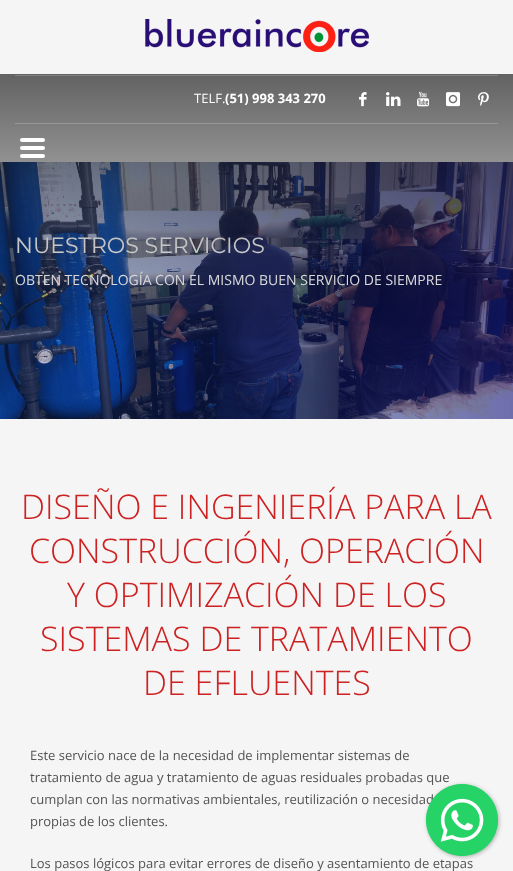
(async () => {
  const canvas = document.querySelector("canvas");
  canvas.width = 513;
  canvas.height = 871;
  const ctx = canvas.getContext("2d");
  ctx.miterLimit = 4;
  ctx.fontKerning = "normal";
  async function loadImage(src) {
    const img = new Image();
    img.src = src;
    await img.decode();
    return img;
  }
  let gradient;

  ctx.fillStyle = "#f5f5f5";
  ctx.fillRect(0, 0, 513, 871);
  ctx.drawImage(await loadImage("img/1.png"), 145, 19, 224, 33);
  ctx.drawImage(await loadImage("img/7.png"), 0, 162, 513, 257);
  ctx.fillStyle = "rgba(60, 60, 60, 0.4)";
  ctx.filter = "blur(2px)";
  ctx.beginPath();
  ctx.roundRect(427, 785, 72, 72, 36);
  ctx.fill();
  ctx.filter = "none";
  ctx.font = "22px Montserrat";
  ctx.fillStyle = "#ffffff";
  ctx.fillText("NUESTROS SERVICIOS", 15, 253);
  ctx.font = "14px Open Sans";
  ctx.fillText("OBTEN TECNOLOGÍA CON EL MISMO BUEN SERVICIO DE SIEMPRE", 15, 285);
  gradient = ctx.createLinearGradient(257, 74, 257, 349);
  gradient.addColorStop(0, "rgba(0, 0, 0, 0.6)");
  gradient.addColorStop(1, "rgba(0, 0, 0, 0)");
  ctx.fillStyle = gradient;
  ctx.fillRect(0, 74, 513, 265);
  ctx.font = "bold 13px Open Sans";
  ctx.fillStyle = "#ffffff";
  ctx.fillText("(51) 998 343 270", 225, 103);
  ctx.font = "13px Open Sans";
  ctx.fillText("TELF.", 194, 103);
  ctx.drawImage(await loadImage("img/6.png"), 478, 92, 11, 14);
  ctx.drawImage(await loadImage("img/5.png"), 446, 92, 14, 15);
  ctx.drawImage(await loadImage("img/4.png"), 417, 91, 13, 16);
  ctx.drawImage(await loadImage("img/3.png"), 386, 92, 15, 14);
  ctx.drawImage(await loadImage("img/2.png"), 359, 92, 8, 15);
  ctx.beginPath();
  ctx.roundRect(20, 138, 25, 4, 2);
  ctx.fill();
  ctx.beginPath();
  ctx.roundRect(20, 146, 25, 4, 2);
  ctx.fill();
  ctx.beginPath();
  ctx.roundRect(20, 154, 25, 4, 2);
  ctx.fill();
  ctx.fillStyle = "#979797";
  ctx.fillRect(15, 123, 483, 1);
  ctx.fillStyle = "#828282";
  ctx.fillRect(15, 75, 483, 1);
  ctx.font = "300 34px Open Sans";
  ctx.fillStyle = "#cd2122";
  for (const [text, x, y] of [
    ["DISEÑO E INGENIERÍA PARA LA", 21, 519],
    ["CONSTRUCCIÓN, OPERACIÓN", 29, 563],
    ["Y OPTIMIZACIÓN DE LOS", 67, 607],
    ["SISTEMAS DE TRATAMIENTO", 40, 651],
    ["DE EFLUENTES", 143, 695],
  ]) {
    ctx.fillText(text, x, y);
  }
  ctx.font = "13px Open Sans";
  ctx.fillStyle = "#535353";
  for (const [text, x, y] of [
    ["Este servicio nace de la necesidad de implementar sistemas de", 30, 760],
    ["tratamiento de agua y tratamiento de aguas residuales probadas que", 30, 782],
    ["cumplan con las normativas ambientales, reutilización o necesidad", 30, 804],
    ["propias de los clientes.", 30, 826],
    ["Los pasos lógicos para evitar errores de diseño y asentamiento de etapas", 30, 868],
  ]) {
    ctx.fillText(text, x, y);
  }
  ctx.fillStyle = "#25d366";
  ctx.beginPath();
  ctx.arc(462, 820, 36, 0, Math.PI * 2);
  ctx.fill();
  ctx.drawImage(await loadImage("img/8.png"), 426, 784, 72, 72);
})();
